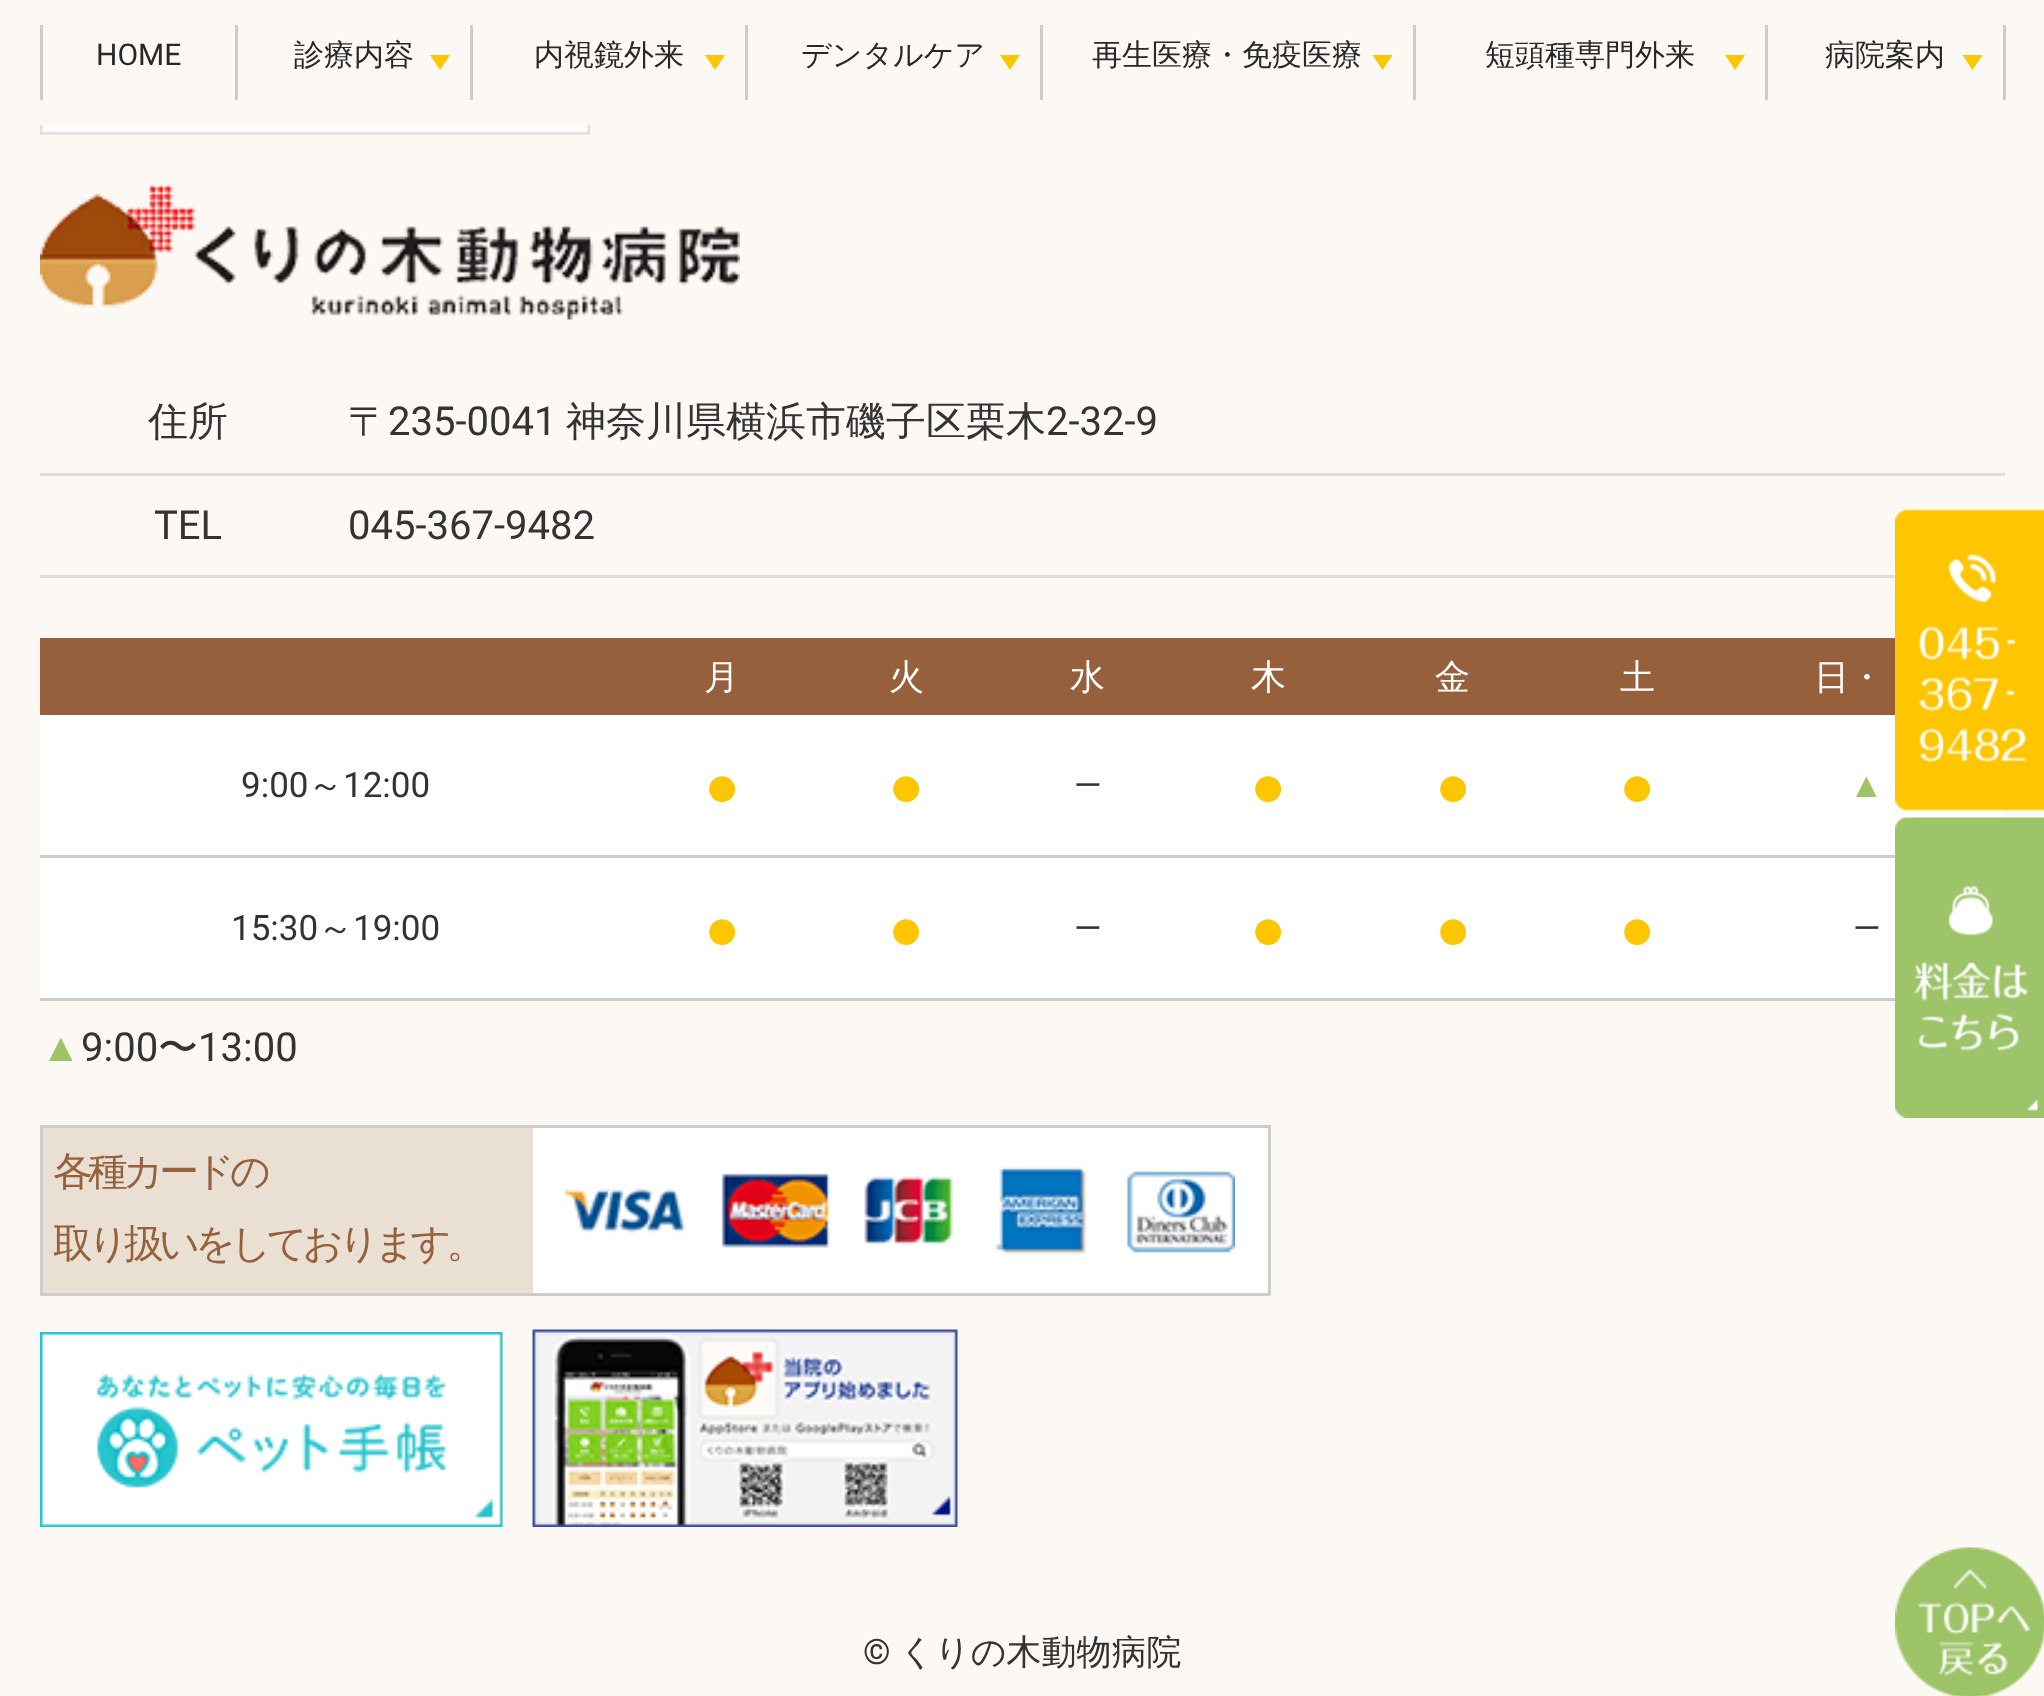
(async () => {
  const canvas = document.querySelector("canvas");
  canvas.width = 2044;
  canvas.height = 1696;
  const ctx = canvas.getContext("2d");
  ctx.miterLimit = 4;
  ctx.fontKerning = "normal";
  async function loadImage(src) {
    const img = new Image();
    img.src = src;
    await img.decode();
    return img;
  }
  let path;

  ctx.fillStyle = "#fcf9f5";
  ctx.fillRect(0, 0, 2044, 1696);
  for (const [x, y, w, h, color] of [
    [235, 25, 3, 75, "#cccccc"],
    [40, 25, 3, 75, "#cccccc"],
    [470, 25, 3, 75, "#cccccc"],
  ]) {
    ctx.fillStyle = color;
    ctx.fillRect(x, y, w, h);
  }
  ctx.fillStyle = "#fec600";
  path = new Path2D("M430 55H450L440 70Z");
  ctx.fill(path);
  ctx.fillStyle = "#cccccc";
  ctx.fillRect(745, 25, 3, 75);
  ctx.fillStyle = "#fec600";
  path = new Path2D("M705 55H725L715 70Z");
  ctx.fill(path);
  ctx.fillStyle = "#cccccc";
  ctx.fillRect(1040, 25, 3, 75);
  ctx.fillStyle = "#fec600";
  path = new Path2D("M1000 55H1020L1010 70Z");
  ctx.fill(path);
  ctx.fillStyle = "#cccccc";
  ctx.fillRect(1413, 25, 3, 75);
  ctx.fillStyle = "#fec600";
  path = new Path2D("M1372.5 55H1392.5L1382.5 70Z");
  ctx.fill(path);
  ctx.fillStyle = "#cccccc";
  ctx.fillRect(1765, 25, 3, 75);
  ctx.fillStyle = "#fec600";
  path = new Path2D("M1725 55H1745L1735 70Z");
  ctx.fill(path);
  ctx.fillStyle = "#cccccc";
  ctx.fillRect(2003, 25, 3, 75);
  ctx.fillStyle = "#fec600";
  path = new Path2D("M1962.5 55H1982.5L1972.5 70Z");
  ctx.fill(path);
  ctx.drawImage(await loadImage("img/1.png"), 40, 125, 550, 10);
  ctx.drawImage(await loadImage("img/2.png"), 40, 184, 700, 136);
  for (const [x, y, w, h, color] of [
    [40, 473, 1965, 3, "#dddedf"],
    [40, 575, 1855, 3, "#dddedf"],
    [40, 715, 1965, 283, "#ffffff"],
    [40, 638, 1855, 77, "#95603b"],
    [40, 855, 1855, 3, "#cccccc"],
    [40, 998, 1855, 3, "#cccccc"],
    [40, 1125, 1230, 3, "#cccccc"],
    [1268, 1125, 3, 170, "#cccccc"],
    [40, 1293, 1230, 3, "#cccccc"],
    [40, 1125, 3, 170, "#cccccc"],
    [43, 1128, 490, 165, "#e9dfd2"],
    [533, 1128, 735, 165, "#ffffff"],
  ]) {
    ctx.fillStyle = color;
    ctx.fillRect(x, y, w, h);
  }
  ctx.drawImage(await loadImage("img/3.png"), 565, 1166, 670, 89);
  ctx.drawImage(await loadImage("img/4.png"), 40, 1332, 463, 195);
  ctx.drawImage(await loadImage("img/5.png"), 532, 1329, 426, 198);
  ctx.drawImage(await loadImage("img/6.png"), 1895, 509, 149, 302);
  ctx.drawImage(await loadImage("img/7.png"), 1895, 817, 149, 301);
  ctx.drawImage(await loadImage("img/8.png"), 1895, 1547, 149, 149);
  ctx.font = "30px Roboto";
  ctx.fillStyle = "#282828";
  ctx.fillText("HOME", 96, 65);
  ctx.font = "500 30px WenQuanYi Zen Hei";
  for (const [text, x, y] of [
    ["診療内容", 294, 65],
    ["内視鏡外来", 534, 65],
    ["デンタルケア", 801, 65],
    ["再生医療・免疫医療", 1092, 65],
    ["短頭種専門外来", 1485, 65],
    ["病院案内", 1825, 65],
  ]) {
    ctx.fillText(text, x, y);
  }
  ctx.font = "500 40px WenQuanYi Zen Hei";
  ctx.fillStyle = "#333333";
  ctx.fillText("住所", 148, 435);
  ctx.fillText("〒", 348, 435);
  ctx.font = "40px Roboto";
  ctx.fillText("235-0041", 388, 435);
  ctx.font = "500 40px WenQuanYi Zen Hei";
  ctx.fillText("神奈川県横浜市磯子区栗木", 566, 435);
  ctx.font = "40px Roboto";
  for (const [text, x, y] of [
    ["2-32-9", 1046, 435],
    ["TEL", 154, 539],
    ["045-367-9482", 348, 539],
  ]) {
    ctx.fillText(text, x, y);
  }
  ctx.font = "500 35px WenQuanYi Zen Hei";
  ctx.fillStyle = "#ffffff";
  for (const [text, x, y] of [
    ["月", 704, 689],
    ["火", 889, 689],
    ["水", 1070, 689],
    ["木", 1251, 689],
    ["金", 1435, 689],
    ["土", 1620, 689],
    ["日・", 1814, 689],
  ]) {
    ctx.fillText(text, x, y);
  }
  ctx.font = "35px Roboto";
  ctx.fillStyle = "#333333";
  ctx.fillText("9:00", 241, 797);
  ctx.font = "500 35px WenQuanYi Zen Hei";
  ctx.fillText("～", 308, 797);
  ctx.font = "35px Roboto";
  ctx.fillText("12:00", 343, 797);
  ctx.font = "60px Liberation Sans";
  ctx.fillStyle = "#fec600";
  ctx.fillText("●", 704, 806);
  ctx.fillText("●", 888, 806);
  ctx.font = "35px Roboto";
  ctx.fillStyle = "#333333";
  ctx.fillText("―", 1074, 797);
  ctx.font = "60px Liberation Sans";
  ctx.fillStyle = "#fec600";
  for (const [text, x, y] of [
    ["●", 1250, 806],
    ["●", 1435, 806],
    ["●", 1619, 806],
  ]) {
    ctx.fillText(text, x, y);
  }
  ctx.font = "35px Liberation Sans";
  ctx.fillStyle = "#9ec469";
  ctx.fillText("▲", 1849, 797);
  ctx.font = "35px Roboto";
  ctx.fillStyle = "#333333";
  ctx.fillText("15:30", 231, 940);
  ctx.font = "500 35px WenQuanYi Zen Hei";
  ctx.fillText("～", 318, 940);
  ctx.font = "35px Roboto";
  ctx.fillText("19:00", 353, 940);
  ctx.font = "60px Liberation Sans";
  ctx.fillStyle = "#fec600";
  ctx.fillText("●", 704, 949);
  ctx.fillText("●", 888, 949);
  ctx.font = "35px Roboto";
  ctx.fillStyle = "#333333";
  ctx.fillText("―", 1074, 940);
  ctx.font = "60px Liberation Sans";
  ctx.fillStyle = "#fec600";
  for (const [text, x, y] of [
    ["●", 1250, 949],
    ["●", 1435, 949],
    ["●", 1619, 949],
  ]) {
    ctx.fillText(text, x, y);
  }
  ctx.font = "35px Roboto";
  ctx.fillStyle = "#333333";
  ctx.fillText("―", 1853, 940);
  ctx.font = "40px Liberation Sans";
  ctx.fillStyle = "#9ec469";
  ctx.fillText("▲", 41, 1061);
  ctx.font = "40px Roboto";
  ctx.fillStyle = "#333333";
  ctx.fillText("9:00", 81, 1061);
  ctx.font = "500 40px WenQuanYi Zen Hei";
  ctx.fillText("〜", 158, 1061);
  ctx.font = "40px Roboto";
  ctx.fillText("13:00", 198, 1061);
  ctx.letterSpacing = "-5px";
  ctx.font = "500 40px WenQuanYi Zen Hei";
  ctx.fillStyle = "#95603b";
  ctx.fillText("各種カードの", 53, 1185);
  ctx.fillText("取り扱いをしております。", 53, 1257);
  ctx.letterSpacing = "0px";
  ctx.font = "35px Roboto";
  ctx.fillStyle = "#333333";
  ctx.fillText("©", 863, 1664);
  ctx.font = "500 35px WenQuanYi Zen Hei";
  ctx.fillText("くりの木動物病院", 899, 1664);
})();
